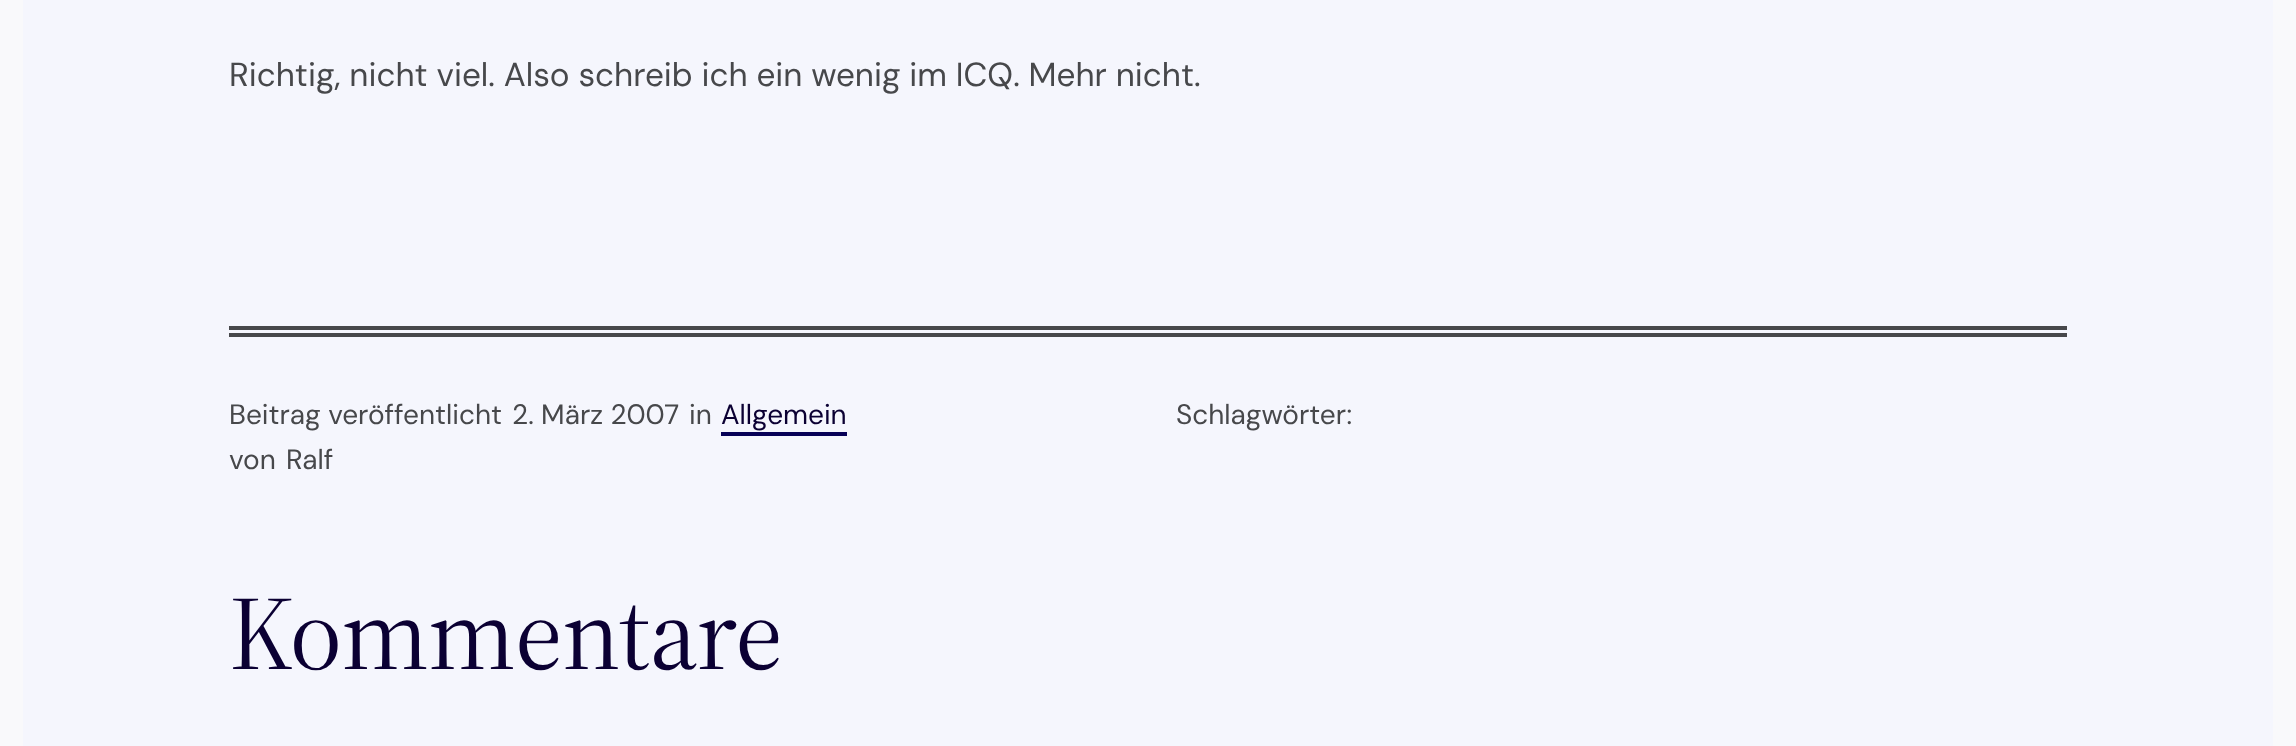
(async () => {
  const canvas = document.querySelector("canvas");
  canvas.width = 2296;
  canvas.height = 746;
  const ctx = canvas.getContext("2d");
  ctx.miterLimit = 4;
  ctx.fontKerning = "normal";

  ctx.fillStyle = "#f5f6fd";
  ctx.fillRect(0, 0, 2296, 746);
  ctx.strokeStyle = "#f9f9fb";
  ctx.lineWidth = 23;
  ctx.strokeRect(11.5, -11.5, 2273, 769);
  for (const [x, y, w, h, color] of [
    [229, 326, 1838, 4, "#47484b"],
    [229, 333, 1838, 4, "#47484b"],
    [721, 432, 126, 4, "#070157"],
  ]) {
    ctx.fillStyle = color;
    ctx.fillRect(x, y, w, h);
  }
  ctx.font = "33.25px DM Sans";
  ctx.fillStyle = "#47484b";
  ctx.fillText("Richtig, nicht viel. Also schreib ich ein wenig im ICQ. Mehr nicht.", 229, 86);
  ctx.font = "28px DM Sans";
  for (const [text, x, y] of [
    ["Beitrag veröffentlicht", 229, 424],
    ["2. März 2007", 512, 424],
    ["in", 689, 424],
  ]) {
    ctx.fillText(text, x, y);
  }
  ctx.fillStyle = "#0b0033";
  ctx.fillText("Allgemein", 721, 424);
  ctx.fillStyle = "#47484b";
  for (const [text, x, y] of [
    ["von", 229, 469],
    ["Ralf", 286, 469],
    ["Schlagwörter:", 1176, 424],
  ]) {
    ctx.fillText(text, x, y);
  }
  ctx.letterSpacing = "-1px";
  ctx.font = "105px 'Source Serif 4'";
  ctx.fillStyle = "#0b0033";
  ctx.fillText("Kommentare", 229, 669);
})();
